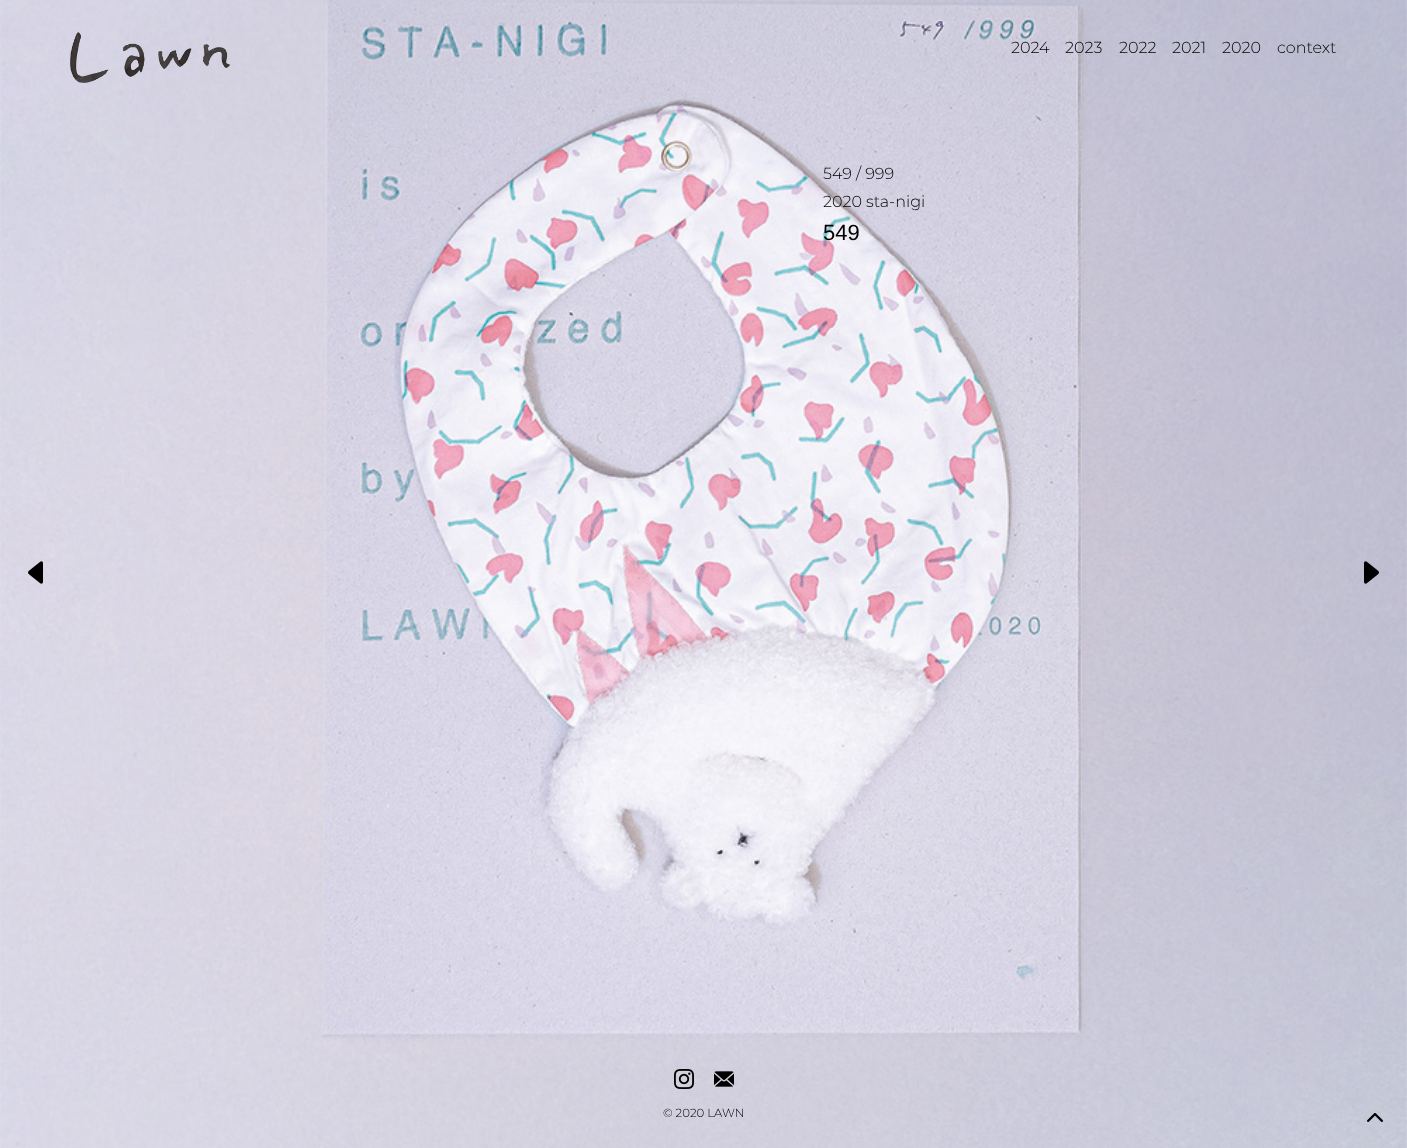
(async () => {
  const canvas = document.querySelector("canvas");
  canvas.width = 1407;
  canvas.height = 1148;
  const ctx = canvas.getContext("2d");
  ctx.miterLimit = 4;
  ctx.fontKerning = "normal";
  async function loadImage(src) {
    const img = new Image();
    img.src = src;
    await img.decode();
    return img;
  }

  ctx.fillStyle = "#ffffff";
  ctx.fillRect(0, 0, 1407, 1148);
  ctx.drawImage(await loadImage("img/1.png"), 0, 0, 1407, 1148);
  ctx.drawImage(await loadImage("img/2.png"), 70, 32, 160, 51);
  ctx.drawImage(await loadImage("img/3.png"), 28, 561, 15, 23);
  ctx.drawImage(await loadImage("img/4.png"), 1364, 561, 15, 23);
  ctx.drawImage(await loadImage("img/5.png"), 674, 1069, 20, 20);
  ctx.drawImage(await loadImage("img/6.png"), 714, 1071, 20, 16);
  ctx.drawImage(await loadImage("img/7.png"), 1367, 1113, 16, 9);
  ctx.font = "300 16px Montserrat";
  ctx.fillStyle = "#000000";
  for (const [text, x, y] of [
    ["2024", 1011, 53],
    ["2023", 1065, 53],
    ["2022", 1119, 53],
    ["2021", 1172, 53],
    ["2020", 1222, 53],
    ["context", 1277, 53],
    ["549 / 999", 823, 179],
    ["2020 sta-nigi", 823, 207],
  ]) {
    ctx.fillText(text, x, y);
  }
  ctx.font = "22px Liberation Sans";
  ctx.fillText("549", 823, 240);
  ctx.font = "300 11.75px Montserrat";
  ctx.fillText("© 2020 LAWN", 663, 1117);
})();
